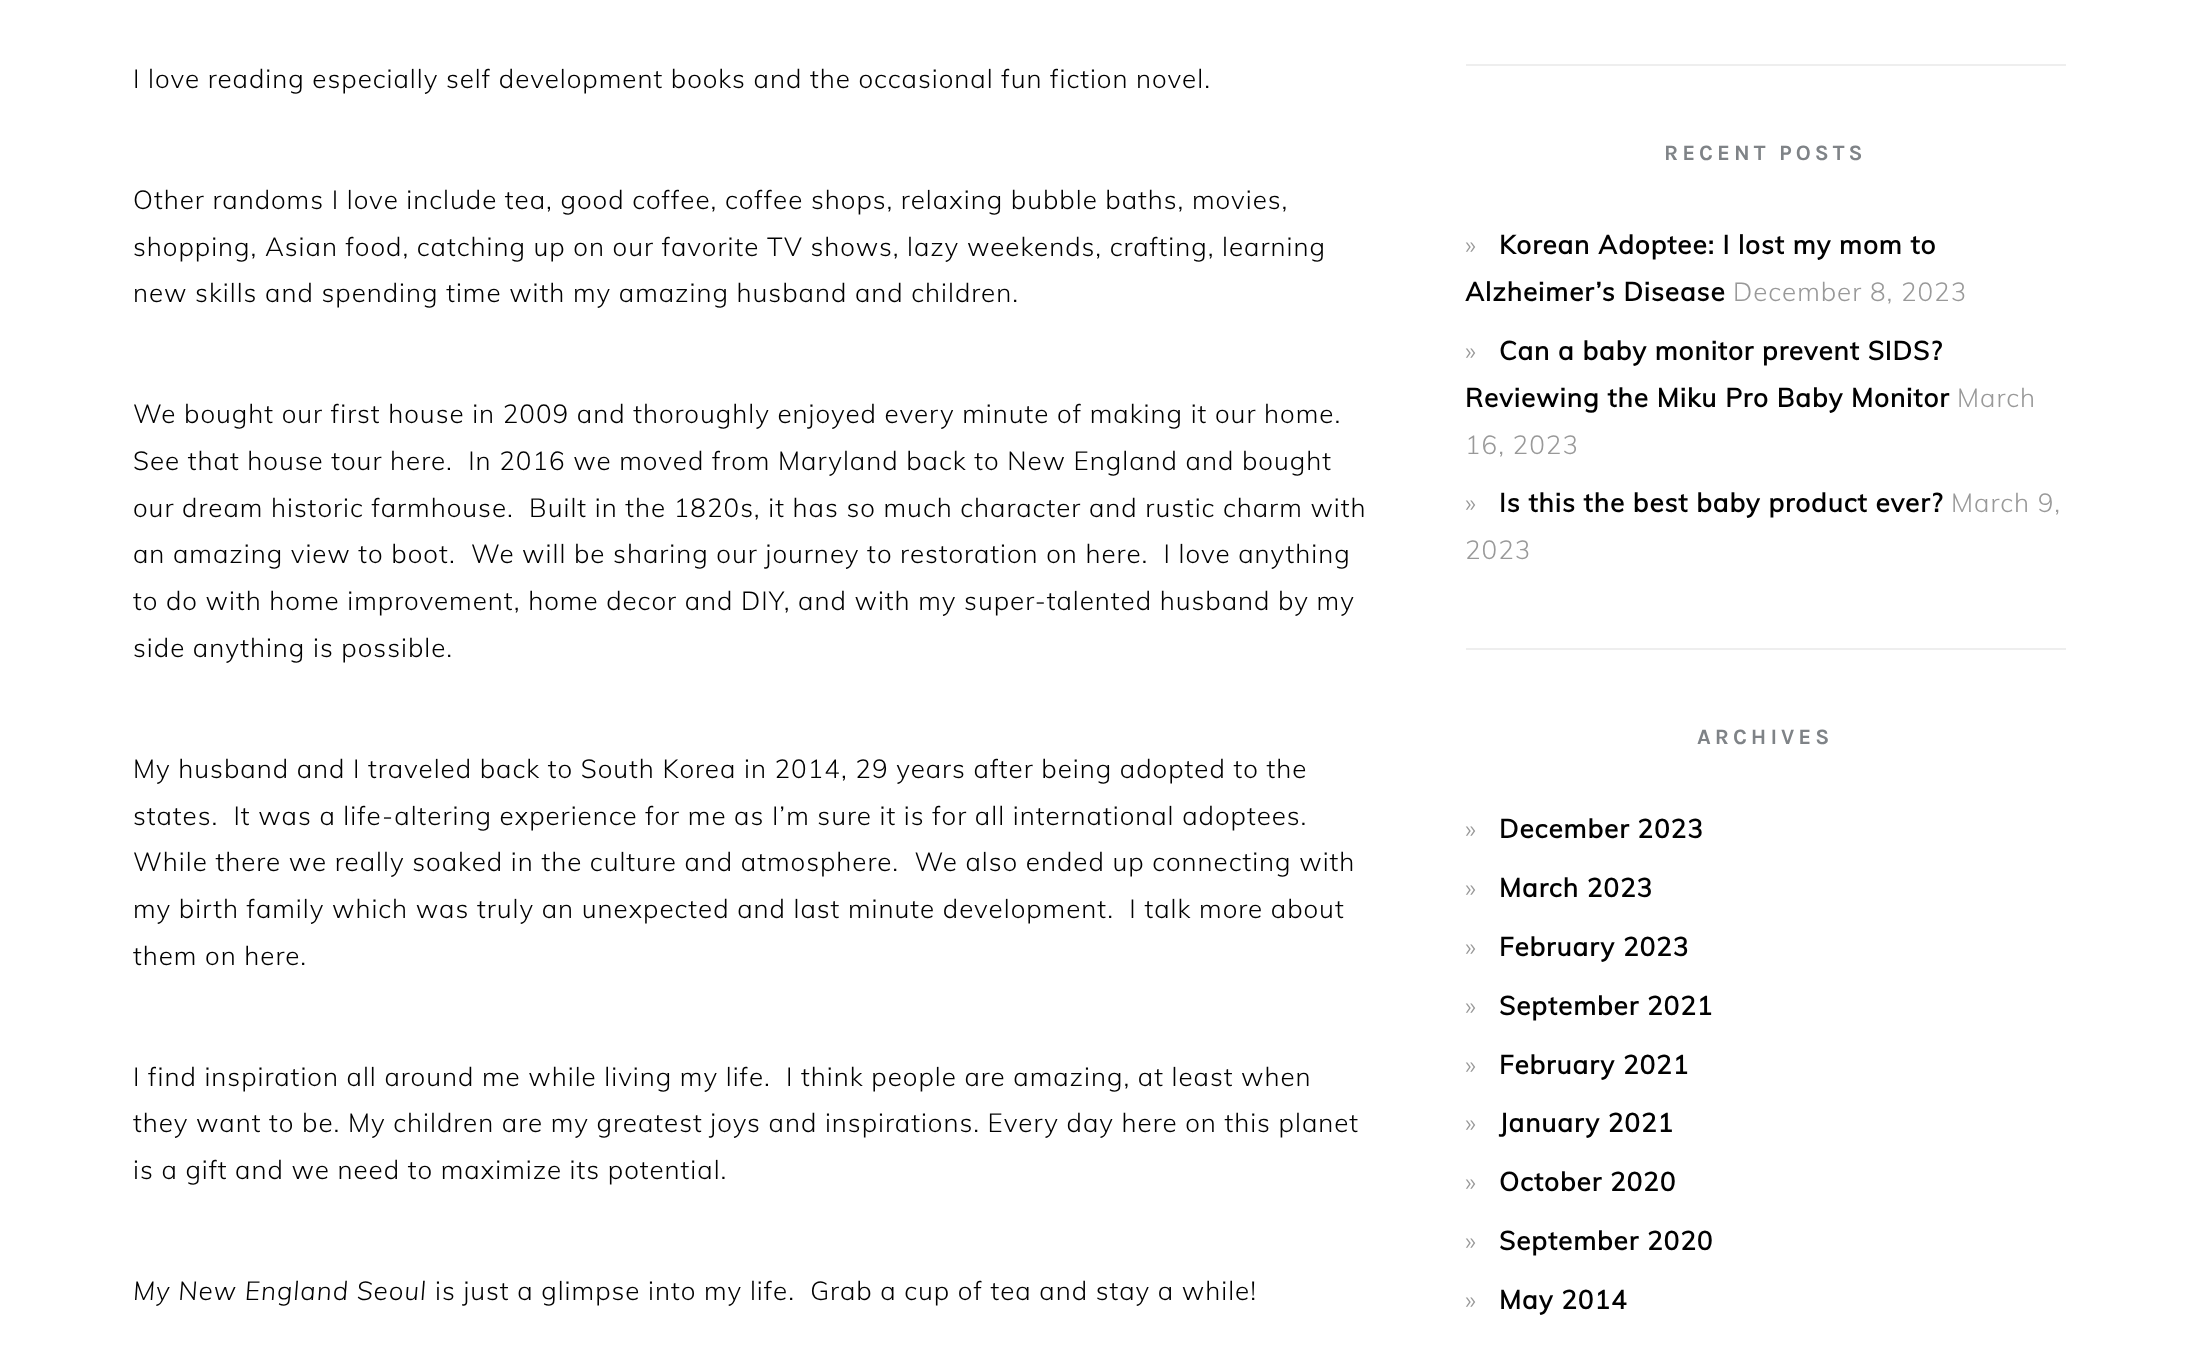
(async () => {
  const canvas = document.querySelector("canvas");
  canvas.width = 2197;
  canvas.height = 1359;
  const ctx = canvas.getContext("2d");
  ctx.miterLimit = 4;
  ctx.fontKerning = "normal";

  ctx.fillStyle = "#ffffff";
  ctx.fillRect(0, 0, 2197, 1359);
  ctx.fillStyle = "#eeeeee";
  ctx.fillRect(1466, 64, 600, 2);
  ctx.fillRect(1466, 648, 600, 2);
  ctx.letterSpacing = "1px";
  ctx.font = "300 26px Muli";
  ctx.fillStyle = "#010101";
  for (const [text, x, y] of [
    ["I love reading especially self development books and the occasional fun fiction novel.", 133, 88],
    ["Other randoms I love include tea, good coffee, coffee shops, relaxing bubble baths, movies,", 133, 209],
    ["shopping, Asian food, catching up on our favorite TV shows, lazy weekends, crafting, learning", 133, 256],
    ["new skills and spending time with my amazing husband and children.", 133, 302],
    ["We bought our first house in 2009 and thoroughly enjoyed every minute of making it our home.", 133, 423],
    ["See that house tour here.  In 2016 we moved from Maryland back to New England and bought", 133, 470],
    ["our dream historic farmhouse.  Built in the 1820s, it has so much character and rustic charm with", 133, 517],
    ["an amazing view to boot.  We will be sharing our journey to restoration on here.  I love anything", 133, 563],
    ["to do with home improvement, home decor and DIY, and with my super-talented husband by my", 133, 610],
    ["side anything is possible.", 133, 657],
    ["My husband and I traveled back to South Korea in 2014, 29 years after being adopted to the", 133, 778],
    ["states.  It was a life-altering experience for me as I’m sure it is for all international adoptees.", 133, 825],
    ["While there we really soaked in the culture and atmosphere.  We also ended up connecting with", 133, 871],
    ["my birth family which was truly an unexpected and last minute development.  I talk more about", 133, 918],
    ["them on here.", 133, 965],
    ["I find inspiration all around me while living my life.  I think people are amazing, at least when", 133, 1086],
    ["they want to be. My children are my greatest joys and inspirations. Every day here on this planet", 133, 1132],
    ["is a gift and we need to maximize its potential.", 133, 1179],
  ]) {
    ctx.fillText(text, x, y);
  }
  ctx.font = "italic 300 26px Muli";
  ctx.fillText("My New England Seoul", 133, 1300);
  ctx.font = "300 26px Muli";
  ctx.fillText("is just a glimpse into my life.  Grab a cup of tea and stay a while!", 435, 1300);
  ctx.letterSpacing = "4px";
  ctx.font = "bold 22px Karla";
  ctx.fillStyle = "#7f8387";
  ctx.fillText("RECENT POSTS", 1664, 160);
  ctx.letterSpacing = "1px";
  ctx.font = "300 26px Muli";
  ctx.fillStyle = "#999999";
  ctx.fillText("»", 1465, 254);
  ctx.font = "bold 26px Muli";
  ctx.fillStyle = "#010101";
  ctx.fillText("Korean Adoptee: I lost my mom to", 1499, 254);
  ctx.fillText("Alzheimer’s Disease", 1465, 301);
  ctx.font = "300 26px Muli";
  ctx.fillStyle = "#999999";
  ctx.fillText("December 8, 2023", 1733, 301);
  ctx.fillText("»", 1465, 360);
  ctx.font = "bold 26px Muli";
  ctx.fillStyle = "#010101";
  ctx.fillText("Can a baby monitor prevent SIDS?", 1499, 360);
  ctx.fillText("Reviewing the Miku Pro Baby Monitor", 1465, 407);
  ctx.font = "300 26px Muli";
  ctx.fillStyle = "#999999";
  for (const [text, x, y] of [
    ["March", 1957, 407],
    ["16, 2023", 1465, 454],
    ["»", 1465, 512],
  ]) {
    ctx.fillText(text, x, y);
  }
  ctx.font = "bold 26px Muli";
  ctx.fillStyle = "#010101";
  ctx.fillText("Is this the best baby product ever?", 1499, 512);
  ctx.font = "300 26px Muli";
  ctx.fillStyle = "#999999";
  ctx.fillText("March 9,", 1951, 512);
  ctx.fillText("2023", 1465, 559);
  ctx.letterSpacing = "4px";
  ctx.font = "bold 22px Karla";
  ctx.fillStyle = "#7f8387";
  ctx.fillText("ARCHIVES", 1697, 744);
  ctx.letterSpacing = "1px";
  ctx.font = "300 26px Muli";
  ctx.fillStyle = "#999999";
  ctx.fillText("»", 1465, 838);
  ctx.font = "bold 26px Muli";
  ctx.fillStyle = "#010101";
  ctx.fillText("December 2023", 1499, 838);
  ctx.font = "300 26px Muli";
  ctx.fillStyle = "#999999";
  ctx.fillText("»", 1465, 897);
  ctx.font = "bold 26px Muli";
  ctx.fillStyle = "#010101";
  ctx.fillText("March 2023", 1499, 897);
  ctx.font = "300 26px Muli";
  ctx.fillStyle = "#999999";
  ctx.fillText("»", 1465, 956);
  ctx.font = "bold 26px Muli";
  ctx.fillStyle = "#010101";
  ctx.fillText("February 2023", 1499, 956);
  ctx.font = "300 26px Muli";
  ctx.fillStyle = "#999999";
  ctx.fillText("»", 1465, 1015);
  ctx.font = "bold 26px Muli";
  ctx.fillStyle = "#010101";
  ctx.fillText("September 2021", 1499, 1015);
  ctx.font = "300 26px Muli";
  ctx.fillStyle = "#999999";
  ctx.fillText("»", 1465, 1074);
  ctx.font = "bold 26px Muli";
  ctx.fillStyle = "#010101";
  ctx.fillText("February 2021", 1499, 1074);
  ctx.font = "300 26px Muli";
  ctx.fillStyle = "#999999";
  ctx.fillText("»", 1465, 1132);
  ctx.font = "bold 26px Muli";
  ctx.fillStyle = "#010101";
  ctx.fillText("January 2021", 1499, 1132);
  ctx.font = "300 26px Muli";
  ctx.fillStyle = "#999999";
  ctx.fillText("»", 1465, 1191);
  ctx.font = "bold 26px Muli";
  ctx.fillStyle = "#010101";
  ctx.fillText("October 2020", 1499, 1191);
  ctx.font = "300 26px Muli";
  ctx.fillStyle = "#999999";
  ctx.fillText("»", 1465, 1250);
  ctx.font = "bold 26px Muli";
  ctx.fillStyle = "#010101";
  ctx.fillText("September 2020", 1499, 1250);
  ctx.font = "300 26px Muli";
  ctx.fillStyle = "#999999";
  ctx.fillText("»", 1465, 1309);
  ctx.font = "bold 26px Muli";
  ctx.fillStyle = "#010101";
  ctx.fillText("May 2014", 1499, 1309);
})();
